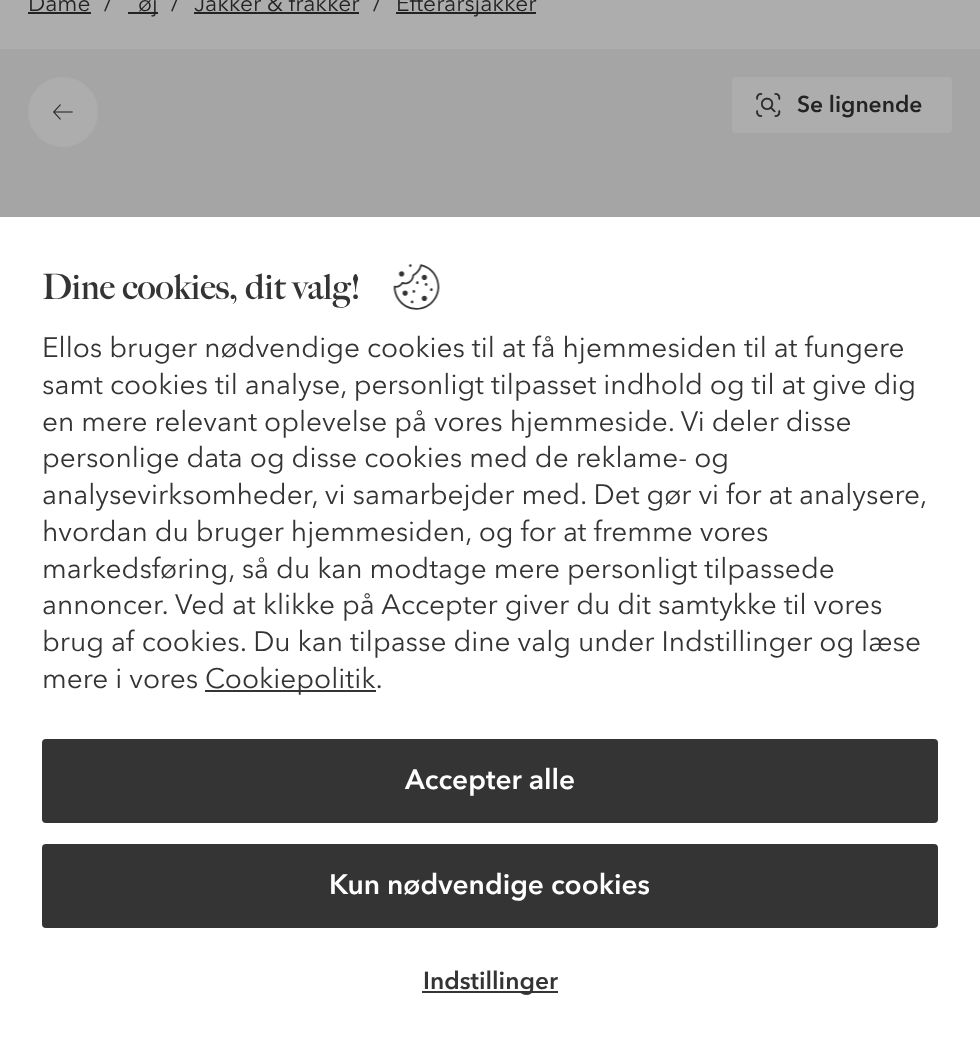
(async () => {
  const canvas = document.querySelector("canvas");
  canvas.width = 980;
  canvas.height = 1042;
  const ctx = canvas.getContext("2d");
  ctx.miterLimit = 4;
  ctx.fontKerning = "normal";
  async function loadImage(src) {
    const img = new Image();
    img.src = src;
    await img.decode();
    return img;
  }

  ctx.fillStyle = "#adadad";
  ctx.fillRect(0, 0, 980, 1042);
  for (const [x, y, w, h, color] of [
    [28, 12, 63, 2, "#232323"],
    [128, 12, 30, 2, "#232323"],
    [194, 12, 165, 2, "#232323"],
    [396, 12, 140, 2, "#232323"],
    [0, 49, 980, 168, "#a5a5a5"],
  ]) {
    ctx.fillStyle = color;
    ctx.fillRect(x, y, w, h);
  }
  ctx.fillStyle = "#adadad";
  ctx.beginPath();
  ctx.arc(63, 112, 34, 0, Math.PI * 2);
  ctx.fill();
  ctx.strokeStyle = "#adadad";
  ctx.lineWidth = 2;
  ctx.stroke();
  ctx.drawImage(await loadImage("img/1.png"), 53, 104, 20, 16);
  ctx.beginPath();
  ctx.roundRect(733, 78, 218, 54, 3);
  ctx.fill();
  ctx.stroke();
  ctx.drawImage(await loadImage("img/2.png"), 756, 93, 25, 24);
  ctx.fillStyle = "#ffffff";
  ctx.fillRect(0, 217, 980, 825);
  ctx.drawImage(await loadImage("img/3.png"), 393, 264, 47, 46);
  ctx.fillStyle = "#343434";
  ctx.fillRect(205, 690, 171, 2);
  ctx.beginPath();
  ctx.roundRect(42, 739, 896, 84, 4);
  ctx.fill();
  ctx.beginPath();
  ctx.roundRect(42, 844, 896, 84, 4);
  ctx.fill();
  ctx.fillRect(422, 991, 136, 2);
  ctx.font = "22.75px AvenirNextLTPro";
  ctx.fillStyle = "#232323";
  for (const [text, x, y] of [
    ["Dame", 28, 11],
    ["/", 104, 11],
    ["øj", 138, 11],
    ["/", 171, 11],
    ["Jakker & frakker", 194, 11],
    ["/", 373, 11],
    ["Efterårsjakker", 396, 11],
  ]) {
    ctx.fillText(text, x, y);
  }
  ctx.font = "bold 22.75px AvenirNextLTPro";
  ctx.fillText("Se lignende", 797, 112);
  ctx.font = "bold 35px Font";
  ctx.fillStyle = "#343434";
  ctx.fillText("Dine cookies, dit valg!", 42, 299);
  ctx.font = "28px AvenirNextLTPro";
  for (const [text, x, y] of [
    ["Ellos bruger nødvendige cookies til at få hjemmesiden til at fungere", 42, 357],
    ["samt cookies til analyse, personligt tilpasset indhold og til at give dig", 42, 394],
    ["en mere relevant oplevelse på vores hjemmeside. Vi deler disse", 42, 431],
    ["personlige data og disse cookies med de reklame- og", 42, 467],
    ["analysevirksomheder, vi samarbejder med. Det gør vi for at analysere,", 42, 504],
    ["hvordan du bruger hjemmesiden, og for at fremme vores", 42, 541],
    ["markedsføring, så du kan modtage mere personligt tilpassede", 42, 578],
    ["annoncer.", 42, 614],
    ["Ved at klikke på Accepter giver du dit samtykke til vores", 175, 614],
    ["brug af cookies. Du kan tilpasse dine valg under Indstillinger og læse", 42, 651],
    ["mere i vores", 42, 688],
    ["Cookiepolitik.", 205, 688],
  ]) {
    ctx.fillText(text, x, y);
  }
  ctx.font = "bold 28px AvenirNextLTPro";
  ctx.fillStyle = "#ffffff";
  ctx.fillText("Accepter alle", 405, 789);
  ctx.fillText("Kun nødvendige cookies", 329, 894);
  ctx.font = "bold 24.5px AvenirNextLTPro";
  ctx.fillStyle = "#343434";
  ctx.fillText("Indstillinger", 423, 989);
})();
